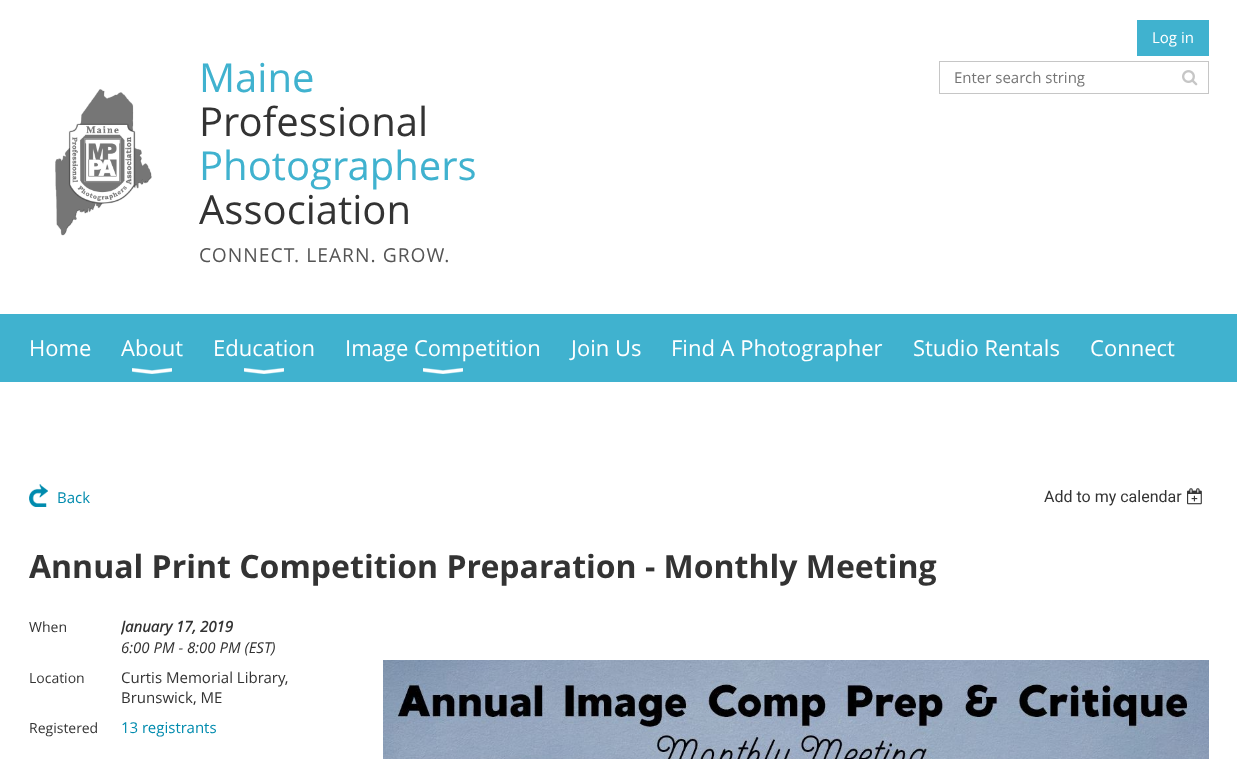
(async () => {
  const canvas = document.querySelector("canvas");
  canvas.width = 1237;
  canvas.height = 759;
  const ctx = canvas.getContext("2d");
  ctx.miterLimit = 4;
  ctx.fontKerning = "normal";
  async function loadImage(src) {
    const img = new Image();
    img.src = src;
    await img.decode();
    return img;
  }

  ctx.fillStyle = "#ffffff";
  ctx.fillRect(0, 0, 1237, 759);
  ctx.drawImage(await loadImage("img/1.png"), 55, 89, 97, 147);
  ctx.fillStyle = "#40b2cf";
  ctx.fillRect(1137, 20, 72, 36);
  ctx.strokeStyle = "#c6c6c6";
  ctx.strokeRect(939.5, 61.5, 269, 32);
  ctx.drawImage(await loadImage("img/2.png"), 1182, 70, 16, 16);
  ctx.fillRect(0, 314, 1237, 68);
  ctx.drawImage(await loadImage("img/3.png"), 132, 368, 40, 6);
  ctx.drawImage(await loadImage("img/3.png"), 244, 368, 40, 6);
  ctx.drawImage(await loadImage("img/3.png"), 423, 368, 40, 6);
  ctx.drawImage(await loadImage("img/4.png"), 29, 484, 19, 23);
  ctx.drawImage(await loadImage("img/5.png"), 1187, 488, 15, 17);
  ctx.drawImage(await loadImage("img/6.png"), 383, 660, 826, 99);
  ctx.font = "40px Open Sans";
  ctx.fillText("Maine", 199, 92);
  ctx.fillStyle = "#333333";
  ctx.fillText("Professional", 199, 136);
  ctx.fillStyle = "#40b2cf";
  ctx.fillText("Photographers", 199, 180);
  ctx.fillStyle = "#333333";
  ctx.fillText("Association", 199, 224);
  ctx.letterSpacing = "1px";
  ctx.font = "19.25px Open Sans";
  ctx.fillStyle = "#555555";
  ctx.fillText("CONNECT. LEARN. GROW.", 199, 262);
  ctx.letterSpacing = "0px";
  ctx.font = "15px Open Sans";
  ctx.fillStyle = "#ffffff";
  ctx.fillText("Log in", 1152, 43);
  ctx.fillStyle = "#757575";
  ctx.fillText("Enter search string", 954, 83);
  ctx.font = "22px Open Sans";
  ctx.fillStyle = "#ffffff";
  for (const [text, x, y] of [
    ["Home", 29, 356],
    ["About", 121, 356],
    ["Education", 213, 356],
    ["Image Competition", 345, 356],
    ["Join Us", 571, 356],
    ["Find A Photographer", 671, 356],
    ["Studio Rentals", 913, 356],
    ["Connect", 1090, 356],
  ]) {
    ctx.fillText(text, x, y);
  }
  ctx.font = "15px Open Sans";
  ctx.fillStyle = "#008bae";
  ctx.fillText("Back", 57, 503);
  ctx.font = "16px Roboto";
  ctx.fillStyle = "#333333";
  ctx.fillText("Add to my calendar", 1044, 502);
  ctx.font = "bold 32px Open Sans";
  ctx.fillText("Annual Print Competition Preparation - Monthly Meeting", 29, 578);
  ctx.font = "14px Open Sans";
  ctx.fillText("When", 29, 632);
  ctx.save();
  ctx.beginPath();
  ctx.rect(121, 616, 232, 20);
  ctx.clip();
  ctx.font = "italic bold 15px Open Sans";
  ctx.fillText("January 17, 2019", 121, 632);
  ctx.restore();
  ctx.font = "italic 15px Open Sans";
  ctx.fillText("6:00 PM - 8:00 PM (EST)", 121, 653);
  ctx.font = "14px Open Sans";
  ctx.fillText("Location", 29, 683);
  ctx.font = "15px Open Sans";
  ctx.fillText("Curtis Memorial Library,", 121, 683);
  ctx.fillText("Brunswick, ME", 121, 703);
  ctx.font = "14px Open Sans";
  ctx.fillText("Registered", 29, 733);
  ctx.font = "15px Open Sans";
  ctx.fillStyle = "#008bae";
  ctx.fillText("13 registrants", 121, 733);
})();
